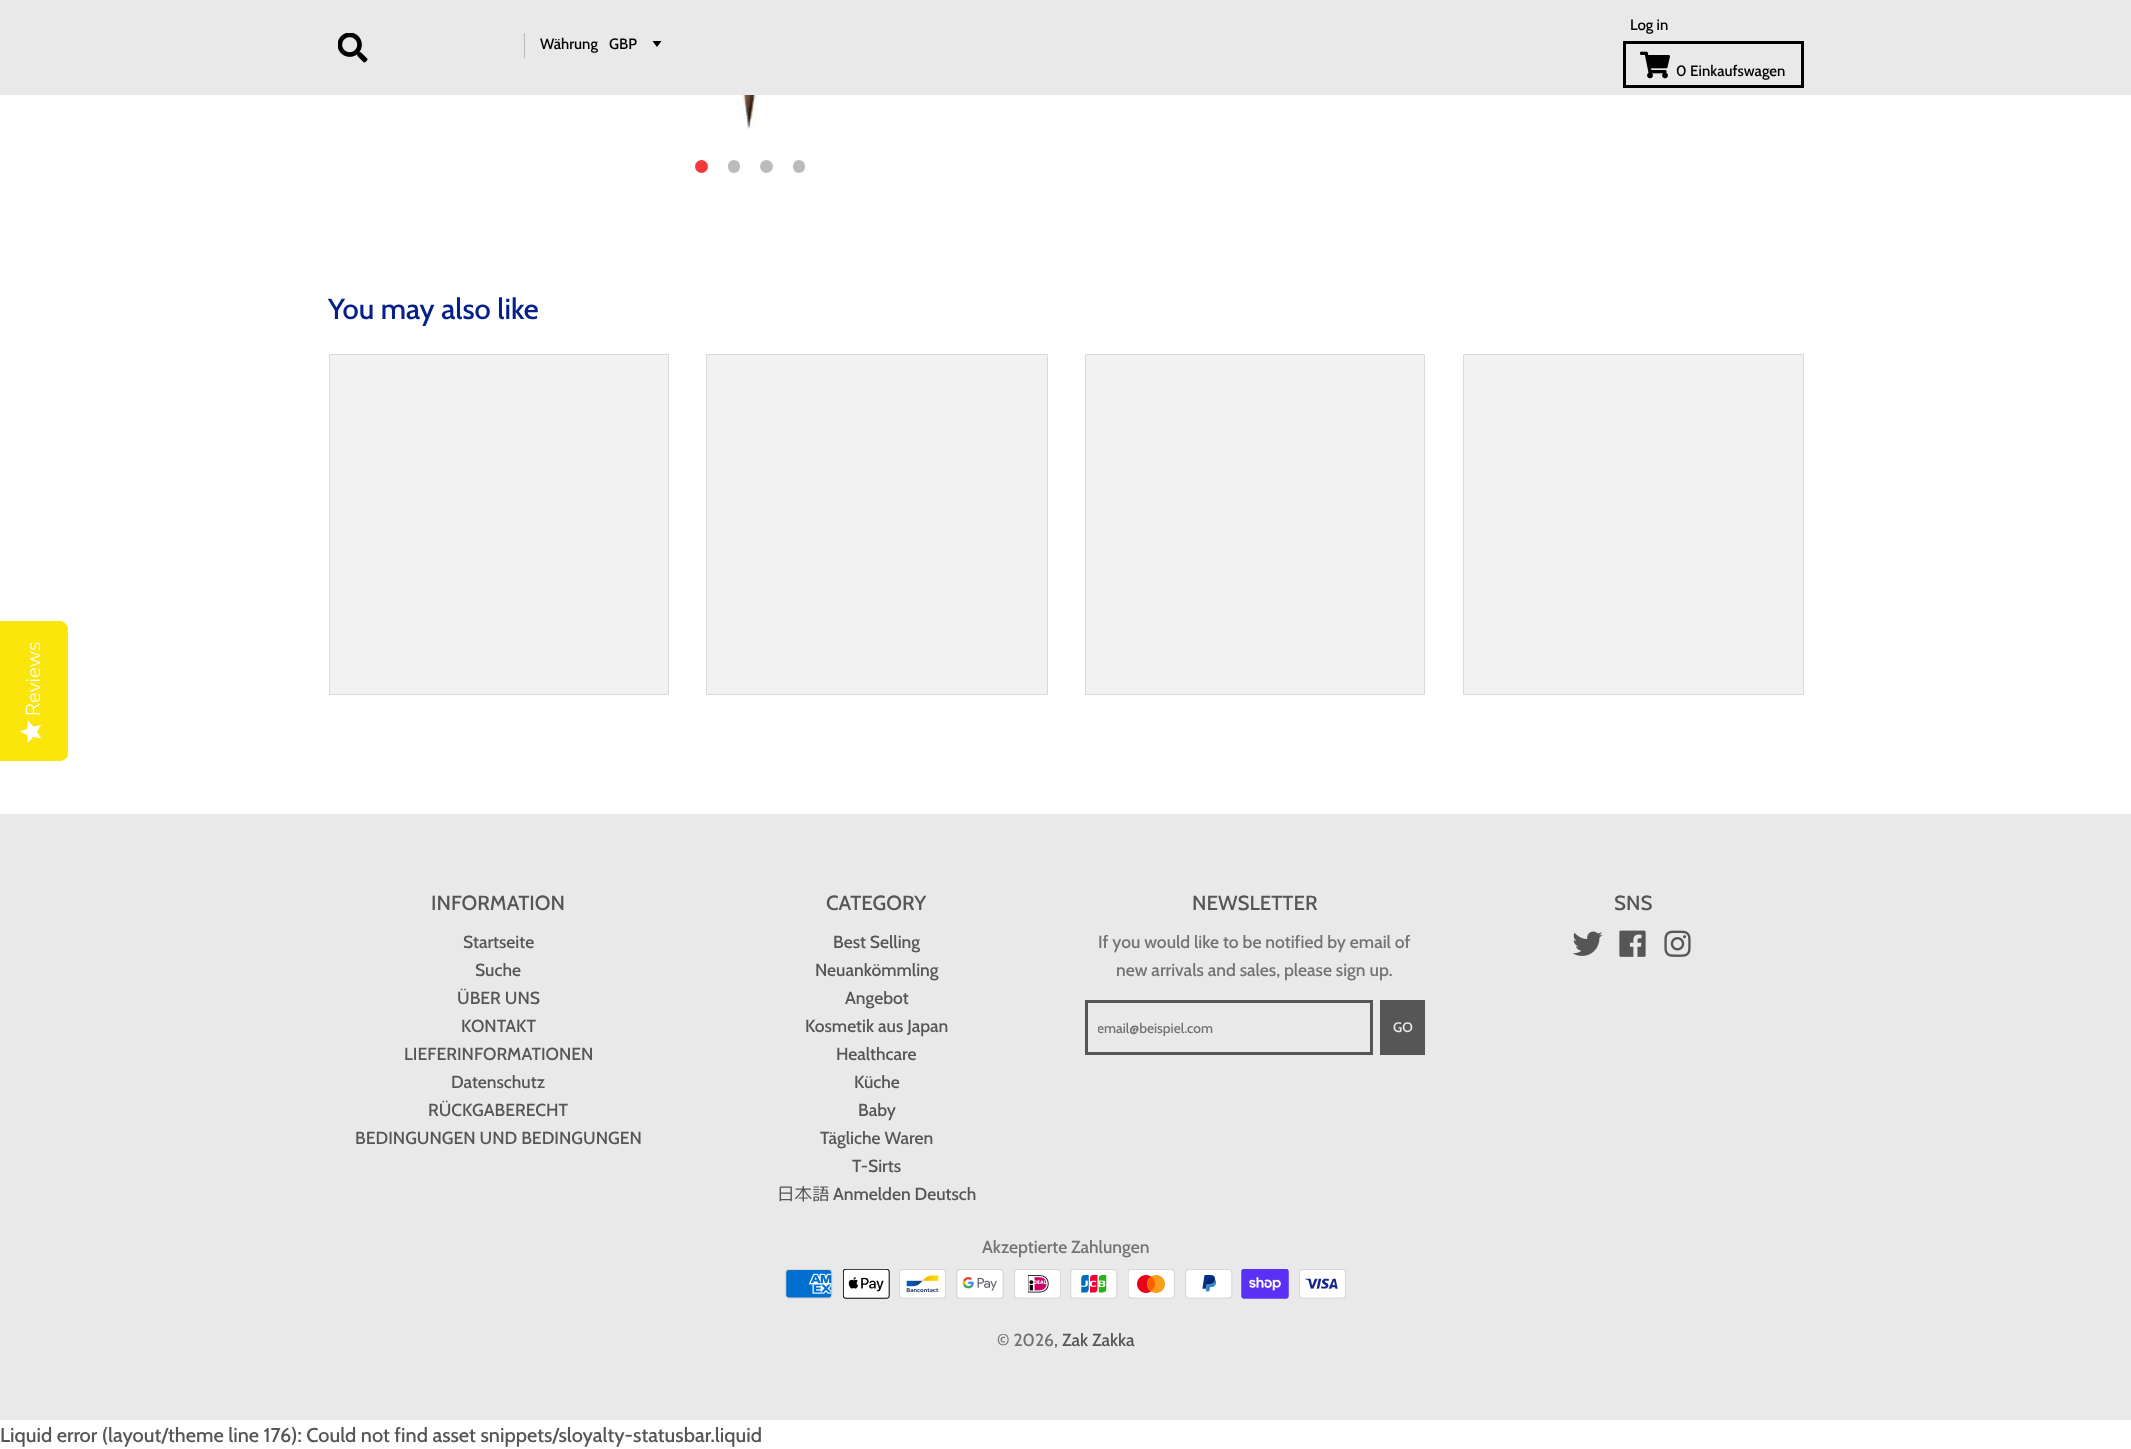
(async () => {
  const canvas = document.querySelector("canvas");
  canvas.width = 2131;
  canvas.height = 1449;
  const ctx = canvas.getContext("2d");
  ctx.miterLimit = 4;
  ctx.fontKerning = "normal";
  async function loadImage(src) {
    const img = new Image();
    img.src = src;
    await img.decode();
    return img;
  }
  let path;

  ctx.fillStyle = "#ffffff";
  ctx.fillRect(0, 0, 2131, 1449);
  ctx.fillStyle = "#fae60a";
  path = new Path2D("M0 761V621H60C64 621 68 625 68 629V754C68 758 64 761 60 761Z");
  ctx.fill(path);
  ctx.drawImage(await loadImage("img/1.png"), 20, 720, 22, 23);
  ctx.fillStyle = "#e9e9e9";
  ctx.fillRect(0, 0, 2131, 95);
  ctx.drawImage(await loadImage("img/2.png"), 338, 33, 30, 30);
  ctx.fillStyle = "#bababa";
  ctx.fillRect(524, 33, 1, 25);
  ctx.fillStyle = "#000000";
  path = new Path2D("M652.5 41L657 47L661.5 41Z");
  ctx.fill(path);
  ctx.strokeStyle = "#000000";
  ctx.lineWidth = 3;
  ctx.strokeRect(1624.5, 42.5, 178, 44);
  ctx.drawImage(await loadImage("img/3.png"), 1640, 51, 30, 28);
  ctx.drawImage(await loadImage("img/4.png"), 736, 95, 31, 34);
  ctx.fillStyle = "#f53737";
  ctx.beginPath();
  ctx.arc(701.5, 166.5, 6.5, 0, Math.PI * 2);
  ctx.fill();
  ctx.fillStyle = "#bbbbbb";
  ctx.beginPath();
  ctx.roundRect(728, 160, 12, 13, 6);
  ctx.fill();
  ctx.beginPath();
  ctx.arc(766.5, 166.5, 6.5, 0, Math.PI * 2);
  ctx.fill();
  ctx.beginPath();
  ctx.roundRect(793, 160, 12, 13, 6);
  ctx.fill();
  ctx.fillStyle = "#f2f2f2";
  ctx.beginPath();
  ctx.rect(329.5, 354.5, 339, 340);
  ctx.fill();
  ctx.strokeStyle = "#dadada";
  ctx.lineWidth = 1;
  ctx.stroke();
  ctx.beginPath();
  ctx.rect(706.5, 354.5, 341, 340);
  ctx.fill();
  ctx.stroke();
  ctx.beginPath();
  ctx.rect(1085.5, 354.5, 339, 340);
  ctx.fill();
  ctx.stroke();
  ctx.beginPath();
  ctx.rect(1463.5, 354.5, 340, 340);
  ctx.fill();
  ctx.stroke();
  ctx.fillStyle = "#e9e9e9";
  ctx.fillRect(0, 814, 2131, 606);
  ctx.strokeStyle = "#565656";
  ctx.lineWidth = 3;
  ctx.strokeRect(1086.5, 1001.5, 285, 52);
  ctx.fillStyle = "#565656";
  ctx.fillRect(1380, 1000, 45, 55);
  ctx.drawImage(await loadImage("img/5.png"), 1573, 931, 30, 25);
  ctx.drawImage(await loadImage("img/6.png"), 1619, 930, 27, 27);
  ctx.drawImage(await loadImage("img/7.png"), 1664, 930, 27, 27);
  ctx.drawImage(await loadImage("img/8.png"), 785, 1269, 48, 30);
  ctx.drawImage(await loadImage("img/9.png"), 843, 1269, 47, 30);
  ctx.drawImage(await loadImage("img/10.png"), 899, 1269, 47, 30);
  ctx.drawImage(await loadImage("img/11.png"), 956, 1269, 48, 30);
  ctx.drawImage(await loadImage("img/12.png"), 1014, 1269, 47, 30);
  ctx.drawImage(await loadImage("img/13.png"), 1070, 1269, 48, 30);
  ctx.drawImage(await loadImage("img/14.png"), 1128, 1269, 47, 30);
  ctx.drawImage(await loadImage("img/15.png"), 1185, 1269, 48, 30);
  ctx.drawImage(await loadImage("img/16.png"), 1241, 1269, 48, 30);
  ctx.drawImage(await loadImage("img/17.png"), 1299, 1269, 47, 30);
  ctx.font = "300 20px Nunito Sans";
  ctx.fillStyle = "#fefefe";
  ctx.save();
  ctx.translate(40, 716);
  ctx.rotate(-90 * Math.PI / 180);
  ctx.fillText("Reviews", 0, 0);
  ctx.restore();
  ctx.font = "500 15px Cabin";
  ctx.fillStyle = "#000000";
  for (const [text, x, y] of [
    ["Währung", 540, 49],
    ["GBP", 609, 49],
    ["Log in", 1630, 30],
    ["0 Einkaufswagen", 1676, 76],
  ]) {
    ctx.fillText(text, x, y);
  }
  ctx.font = "500 29px Cabin";
  ctx.fillStyle = "#06208b";
  ctx.fillText("You may also like", 328, 319);
  ctx.font = "500 20.5px Cabin";
  ctx.fillStyle = "#565656";
  ctx.fillText("INFORMATION", 431, 910);
  ctx.font = "500 17.5px Cabin";
  for (const [text, x, y] of [
    ["Startseite", 463, 948],
    ["Suche", 475, 976],
    ["ÜBER UNS", 457, 1004],
    ["KONTAKT", 461, 1032],
    ["LIEFERINFORMATIONEN", 404, 1060],
    ["Datenschutz", 451, 1088],
    ["RÜCKGABERECHT", 428, 1116],
    ["BEDINGUNGEN UND BEDINGUNGEN", 355, 1144],
  ]) {
    ctx.fillText(text, x, y);
  }
  ctx.font = "500 20.5px Cabin";
  ctx.fillText("CATEGORY", 826, 910);
  ctx.font = "500 17.5px Cabin";
  for (const [text, x, y] of [
    ["Best Selling", 833, 948],
    ["Neuankömmling", 815, 976],
    ["Angebot", 845, 1004],
    ["Kosmetik aus Japan", 805, 1032],
    ["Healthcare", 836, 1060],
    ["Küche", 854, 1088],
    ["Baby", 858, 1116],
    ["Tägliche Waren", 820, 1144],
    ["T-Sirts", 852, 1172],
  ]) {
    ctx.fillText(text, x, y);
  }
  ctx.font = "17.5px 'Rounded Mplus 1c'";
  ctx.fillText("日本語", 777, 1200);
  ctx.font = "500 17.5px Cabin";
  ctx.fillText("Anmelden Deutsch", 833, 1200);
  ctx.font = "500 20.5px Cabin";
  ctx.fillText("NEWSLETTER", 1192, 910);
  ctx.font = "500 17.5px Cabin";
  ctx.fillStyle = "#737373";
  ctx.fillText("If you would like to be notified by email of", 1098, 948);
  ctx.fillText("new arrivals and sales, please sign up.", 1116, 976);
  ctx.save();
  ctx.beginPath();
  ctx.rect(1098, 1019, 262, 17);
  ctx.clip();
  ctx.font = "500 13.75px Cabin";
  ctx.fillText("email@beispiel.com", 1097, 1033);
  ctx.restore();
  ctx.font = "500 13.75px Cabin";
  ctx.fillStyle = "#e9e9e9";
  ctx.fillText("GO", 1393, 1032);
  ctx.font = "500 20.5px Cabin";
  ctx.fillStyle = "#565656";
  ctx.fillText("SNS", 1614, 910);
  ctx.font = "500 17.5px Cabin";
  ctx.fillStyle = "#737373";
  ctx.fillText("Akzeptierte Zahlungen", 982, 1253);
  ctx.fillText("© 2026,", 997, 1346);
  ctx.fillStyle = "#565656";
  ctx.fillText("Zak Zakka", 1062, 1346);
  ctx.font = "500 20px Cabin";
  ctx.fillText("Liquid error (layout/theme line 176): Could not find asset snippets/sloyalty-statusbar.liquid", 0, 1442);
})();
